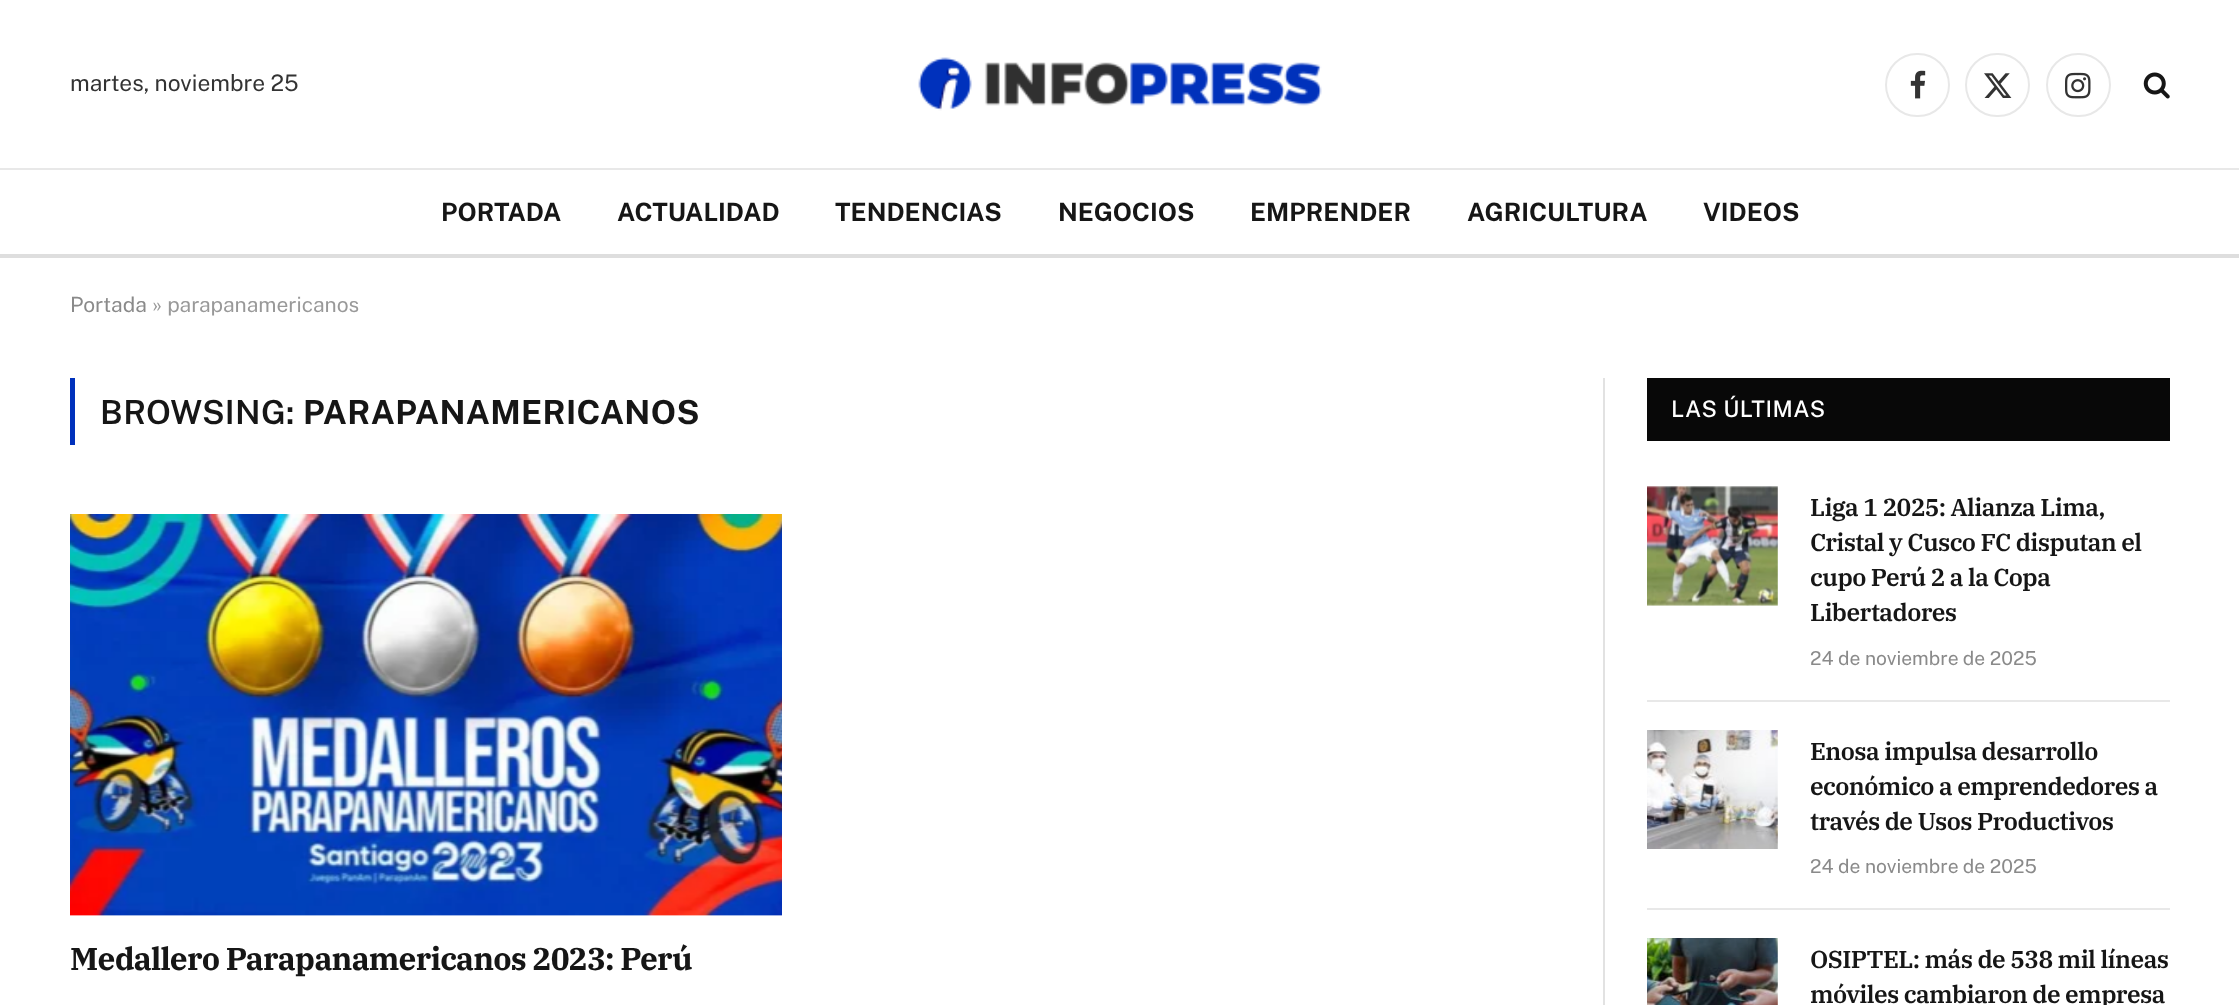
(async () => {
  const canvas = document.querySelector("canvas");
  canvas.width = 2239;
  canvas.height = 1005;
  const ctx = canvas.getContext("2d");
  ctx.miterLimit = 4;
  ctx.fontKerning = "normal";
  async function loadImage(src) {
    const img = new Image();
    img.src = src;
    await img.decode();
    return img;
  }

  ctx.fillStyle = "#ffffff";
  ctx.fillRect(0, 0, 2239, 1005);
  ctx.drawImage(await loadImage("img/1.png"), 918, 57, 404, 54);
  ctx.beginPath();
  ctx.roundRect(1886, 54, 63, 62, 31);
  ctx.strokeStyle = "#e8e8e8";
  ctx.lineWidth = 2;
  ctx.stroke();
  ctx.drawImage(await loadImage("img/2.png"), 1910, 70, 16, 29);
  ctx.beginPath();
  ctx.roundRect(1966, 54, 63, 62, 31);
  ctx.stroke();
  ctx.drawImage(await loadImage("img/3.png"), 1984, 73, 28, 25);
  ctx.beginPath();
  ctx.roundRect(2047, 54, 63, 62, 31);
  ctx.stroke();
  ctx.drawImage(await loadImage("img/4.png"), 2065, 72, 26, 27);
  ctx.drawImage(await loadImage("img/5.png"), 2143, 72, 27, 27);
  for (const [x, y, w, h, color] of [
    [0, 168, 2239, 2, "#e8e8e8"],
    [0, 254, 2239, 4, "#dedede"],
    [70, 378, 5, 67, "#0031bc"],
  ]) {
    ctx.fillStyle = color;
    ctx.fillRect(x, y, w, h);
  }
  ctx.drawImage(await loadImage("img/6.png"), 70, 514, 712, 402);
  ctx.fillStyle = "#e2e2e2";
  ctx.fillRect(1603, 378, 2, 627);
  ctx.fillStyle = "#080808";
  ctx.fillRect(1647, 378, 523, 63);
  ctx.drawImage(await loadImage("img/7.png"), 1647, 486, 131, 120);
  ctx.fillStyle = "#e8e8e8";
  ctx.fillRect(1647, 700, 523, 2);
  ctx.drawImage(await loadImage("img/8.png"), 1647, 730, 131, 119);
  ctx.fillRect(1647, 908, 523, 2);
  ctx.drawImage(await loadImage("img/9.png"), 1647, 938, 131, 67);
  ctx.font = "22.75px Public Sans";
  ctx.fillStyle = "#333333";
  ctx.fillText("martes, noviembre 25", 70, 91);
  ctx.font = "bold 25.25px Public Sans";
  ctx.fillStyle = "#161616";
  for (const [text, x, y] of [
    ["PORTADA", 441, 221],
    ["ACTUALIDAD", 617, 221],
    ["TENDENCIAS", 835, 221],
    ["NEGOCIOS", 1058, 221],
    ["EMPRENDER", 1250, 221],
    ["AGRICULTURA", 1467, 221],
    ["VIDEOS", 1703, 221],
  ]) {
    ctx.fillText(text, x, y);
  }
  ctx.font = "21px Public Sans";
  ctx.fillStyle = "#8a8a8a";
  ctx.fillText("Portada", 70, 312);
  ctx.fillStyle = "#999999";
  ctx.fillText("» parapanamericanos", 152, 312);
  ctx.letterSpacing = "0.3px";
  ctx.font = "600 33.25px Public Sans";
  ctx.fillStyle = "#161616";
  ctx.fillText("BROWSING:", 100, 424);
  ctx.font = "bold 33.25px Public Sans";
  ctx.fillText("PARAPANAMERICANOS", 303, 424);
  ctx.letterSpacing = "-0.8px";
  ctx.font = "bold 31.5px IBM Plex Serif";
  ctx.fillText("Medallero Parapanamericanos 2023: Perú", 70, 970);
  ctx.letterSpacing = "0.5px";
  ctx.font = "500 22.75px Public Sans";
  ctx.fillStyle = "#ffffff";
  ctx.fillText("LAS ÚLTIMAS", 1671, 417);
  ctx.letterSpacing = "-0.6px";
  ctx.font = "600 24.5px IBM Plex Serif";
  ctx.fillStyle = "#161616";
  for (const [text, x, y] of [
    ["Liga 1 2025: Alianza Lima,", 1810, 516],
    ["Cristal y Cusco FC disputan el", 1810, 551],
    ["cupo Perú 2 a la Copa", 1810, 586],
    ["Libertadores", 1810, 621],
  ]) {
    ctx.fillText(text, x, y);
  }
  ctx.letterSpacing = "0px";
  ctx.font = "19.25px Public Sans";
  ctx.fillStyle = "#8a8a8a";
  ctx.fillText("24 de noviembre de 2025", 1810, 665);
  ctx.letterSpacing = "-0.6px";
  ctx.font = "600 24.5px IBM Plex Serif";
  ctx.fillStyle = "#161616";
  for (const [text, x, y] of [
    ["Enosa impulsa desarrollo", 1810, 760],
    ["económico a emprendedores a", 1810, 795],
    ["través de Usos Productivos", 1810, 830],
  ]) {
    ctx.fillText(text, x, y);
  }
  ctx.letterSpacing = "0px";
  ctx.font = "19.25px Public Sans";
  ctx.fillStyle = "#8a8a8a";
  ctx.fillText("24 de noviembre de 2025", 1810, 873);
  ctx.letterSpacing = "-0.6px";
  ctx.font = "600 24.5px IBM Plex Serif";
  ctx.fillStyle = "#161616";
  ctx.fillText("OSIPTEL: más de 538 mil líneas", 1810, 968);
  ctx.fillText("móviles cambiaron de empresa", 1810, 1003);
})();
